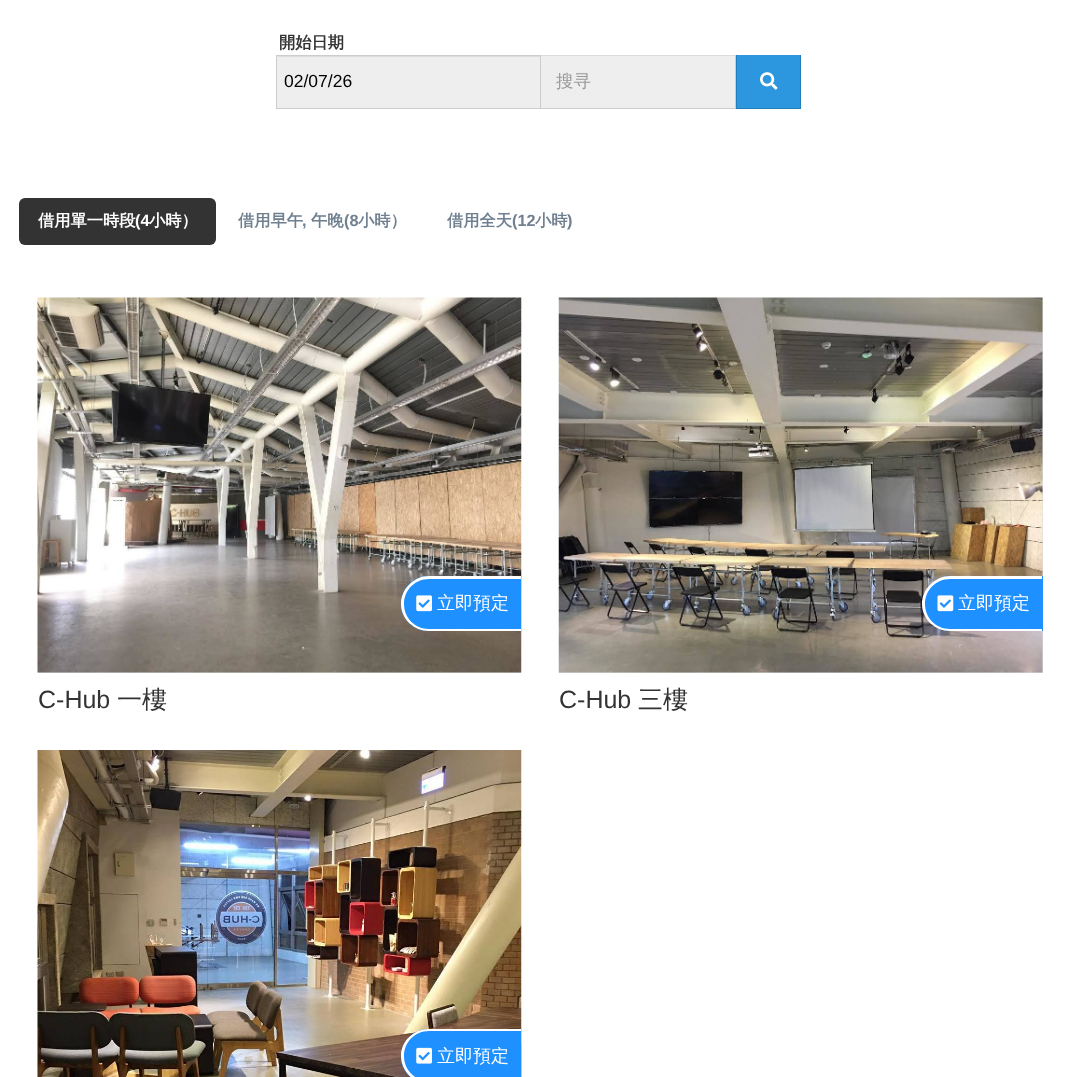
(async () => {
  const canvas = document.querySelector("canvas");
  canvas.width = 1079;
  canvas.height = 1077;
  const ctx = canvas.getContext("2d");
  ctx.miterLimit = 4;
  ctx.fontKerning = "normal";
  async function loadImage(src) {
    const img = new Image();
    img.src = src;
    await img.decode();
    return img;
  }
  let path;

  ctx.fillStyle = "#ffffff";
  ctx.fillRect(0, 0, 1079, 1077);
  for (const [x, y, w, h, color] of [
    [277, 56, 263, 52, "#eeeeee"],
    [278, 56, 262, 1, "#dcdcdc"],
    [276, 55, 264, 1, "#cccccc"],
    [276, 108, 264, 1, "#cccccc"],
    [276, 55, 1, 54, "#cccccc"],
    [541, 56, 194, 52, "#eeeeee"],
    [541, 55, 194, 1, "#dcdcdc"],
    [735, 55, 1, 54, "#cccccc"],
    [540, 108, 196, 1, "#cccccc"],
    [540, 55, 1, 54, "#cccccc"],
    [737, 55, 63, 53, "#2c97de"],
    [800, 55, 1, 54, "#227fbb"],
    [736, 108, 65, 1, "#227fbb"],
    [736, 55, 1, 54, "#227fbb"],
  ]) {
    ctx.fillStyle = color;
    ctx.fillRect(x, y, w, h);
  }
  ctx.drawImage(await loadImage("img/1.png"), 760, 72, 18, 18);
  ctx.fillStyle = "#333333";
  ctx.beginPath();
  ctx.roundRect(19, 198, 197, 47, 6);
  ctx.fill();
  ctx.fillStyle = "#dddddd";
  ctx.fillRect(38, 672, 483, 1);
  ctx.drawImage(await loadImage("img/2.png"), 37, 297, 485, 376);
  ctx.fillStyle = "#1e90ff";
  ctx.beginPath();
  ctx.roundRect(401, 576, 120, 55, [27.5, 0, 0, 27.5]);
  ctx.fill();
  ctx.fillStyle = "#ffffff";
  path = new Path2D("M429 576H521V631H429C414 631 401 619 401 604C401 589 414 576 429 576ZM429 579H521V629H429C415 629 404 618 404 604C404 590 415 579 429 579Z");
  ctx.fill(path, "evenodd");
  ctx.drawImage(await loadImage("img/3.png"), 416, 595, 16, 17);
  ctx.fillStyle = "#dddddd";
  ctx.fillRect(559, 298, 484, 375);
  ctx.drawImage(await loadImage("img/4.png"), 558, 297, 485, 376);
  ctx.fillStyle = "#1e90ff";
  ctx.beginPath();
  ctx.roundRect(923, 576, 120, 55, [27.5, 0, 0, 27.5]);
  ctx.fill();
  ctx.fillStyle = "#ffffff";
  path = new Path2D("M950 576H1042V631H950C935 631 922 619 922 604C922 589 935 576 950 576ZM950 579H1042V629H950C936 629 925 618 925 604C925 590 936 579 950 579Z");
  ctx.fill(path, "evenodd");
  ctx.drawImage(await loadImage("img/5.png"), 937, 595, 17, 17);
  ctx.drawImage(await loadImage("img/6.png"), 37, 750, 485, 327);
  ctx.fillStyle = "#1e90ff";
  path = new Path2D("M428.5 1029H521V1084H428.5C413.5 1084 401 1071.5 401 1056.5C401 1041.5 413.5 1029 428.5 1029Z");
  ctx.fill(path);
  ctx.fillStyle = "#ffffff";
  path = new Path2D("M429 1029H521V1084H429C414 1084 401 1071 401 1056C401 1041 414 1029 429 1029ZM429 1031H521V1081H429C415 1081 404 1070 404 1056C404 1042 415 1031 429 1031Z");
  ctx.fill(path, "evenodd");
  ctx.drawImage(await loadImage("img/7.png"), 416, 1047, 16, 17);
  ctx.font = "bold 16.25px WenQuanYi Zen Hei";
  ctx.fillStyle = "#333333";
  ctx.fillText("開始日期", 279, 48);
  ctx.font = "17.5px Liberation Sans";
  ctx.fillStyle = "#000000";
  ctx.fillText("02/07/26", 284, 87);
  ctx.font = "500 17.5px WenQuanYi Zen Hei";
  ctx.fillStyle = "#999999";
  ctx.fillText("搜寻", 556, 87);
  ctx.font = "bold 16.25px WenQuanYi Zen Hei";
  ctx.fillStyle = "#ffffff";
  ctx.fillText("借用單一時段", 38, 226);
  ctx.font = "bold 16.25px Liberation Sans";
  ctx.fillText("(4", 135, 226);
  ctx.font = "bold 16.25px WenQuanYi Zen Hei";
  ctx.fillText("小時）", 149, 226);
  ctx.fillStyle = "#708090";
  ctx.fillText("借用早午", 238, 226);
  ctx.font = "bold 16.25px Liberation Sans";
  ctx.fillText(",", 302, 226);
  ctx.font = "bold 16.25px WenQuanYi Zen Hei";
  ctx.fillText("午晚", 311, 226);
  ctx.font = "bold 16.25px Liberation Sans";
  ctx.fillText("(8", 344, 226);
  ctx.font = "bold 16.25px WenQuanYi Zen Hei";
  ctx.fillText("小時）", 358, 226);
  ctx.fillText("借用全天", 447, 226);
  ctx.font = "bold 16.25px Liberation Sans";
  ctx.fillText("(12", 512, 226);
  ctx.font = "bold 16.25px WenQuanYi Zen Hei";
  ctx.fillText("小時", 535, 226);
  ctx.font = "bold 16.25px Liberation Sans";
  ctx.fillText(")", 567, 226);
  ctx.font = "500 18px WenQuanYi Zen Hei";
  ctx.fillStyle = "#ffffff";
  ctx.fillText("立即預定", 437, 609);
  ctx.font = "25px Liberation Sans";
  ctx.fillStyle = "#333333";
  ctx.fillText("C-Hub", 38, 708);
  ctx.font = "500 25px WenQuanYi Zen Hei";
  ctx.fillText("一樓", 117, 708);
  ctx.font = "500 18px WenQuanYi Zen Hei";
  ctx.fillStyle = "#ffffff";
  ctx.fillText("立即預定", 958, 609);
  ctx.font = "25px Liberation Sans";
  ctx.fillStyle = "#333333";
  ctx.fillText("C-Hub", 559, 708);
  ctx.font = "500 25px WenQuanYi Zen Hei";
  ctx.fillText("三樓", 638, 708);
  ctx.font = "500 18px WenQuanYi Zen Hei";
  ctx.fillStyle = "#ffffff";
  ctx.fillText("立即預定", 437, 1062);
})();
